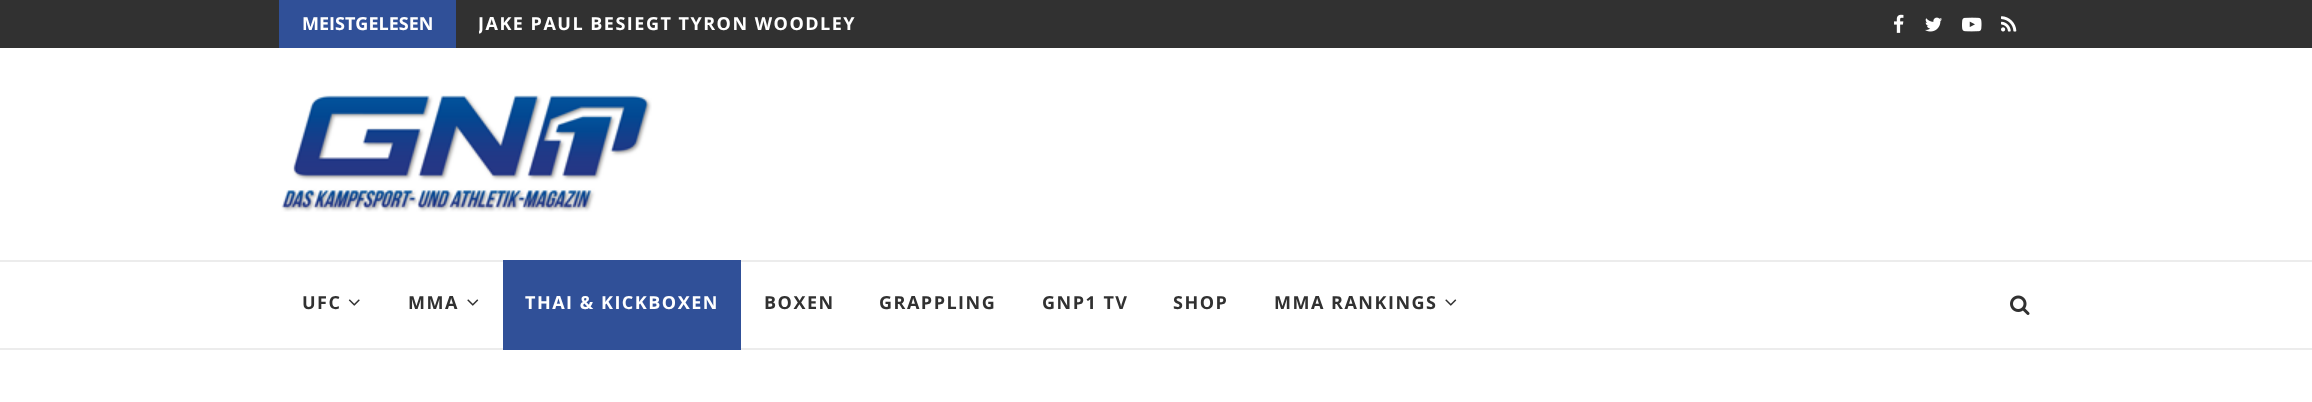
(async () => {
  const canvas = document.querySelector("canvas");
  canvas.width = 2312;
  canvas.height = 402;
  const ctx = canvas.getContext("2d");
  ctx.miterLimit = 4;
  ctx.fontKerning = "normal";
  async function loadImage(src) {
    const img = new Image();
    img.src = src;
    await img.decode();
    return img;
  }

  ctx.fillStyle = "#ffffff";
  ctx.fillRect(0, 0, 2312, 402);
  ctx.fillStyle = "#313131";
  ctx.fillRect(0, 0, 2312, 48);
  ctx.fillStyle = "#305098";
  ctx.fillRect(279, 0, 177, 48);
  ctx.drawImage(await loadImage("img/1.png"), 1894, 14, 10, 19);
  ctx.drawImage(await loadImage("img/2.png"), 1925, 17, 17, 15);
  ctx.drawImage(await loadImage("img/3.png"), 1962, 17, 20, 15);
  ctx.drawImage(await loadImage("img/4.png"), 2001, 16, 16, 16);
  ctx.drawImage(await loadImage("img/5.png"), 281, 95, 371, 117);
  ctx.fillStyle = "#ececec";
  ctx.fillRect(0, 260, 2312, 2);
  ctx.fillRect(0, 348, 2312, 2);
  ctx.drawImage(await loadImage("img/6.png"), 348, 299, 12, 7);
  ctx.drawImage(await loadImage("img/7.png"), 467, 299, 12, 7);
  ctx.fillStyle = "#305098";
  ctx.fillRect(503, 260, 238, 90);
  ctx.drawImage(await loadImage("img/7.png"), 1445, 299, 12, 7);
  ctx.drawImage(await loadImage("img/8.png"), 2010, 295, 20, 20);
  ctx.font = "bold 18px Open Sans";
  ctx.fillStyle = "#ffffff";
  ctx.fillText("MEISTGELESEN", 302, 30);
  ctx.save();
  ctx.beginPath();
  ctx.rect(479, 0, 1414, 48);
  ctx.clip();
  ctx.letterSpacing = "1.5px";
  ctx.fillText("JAKE PAUL BESIEGT TYRON WOODLEY", 478, 30);
  ctx.restore();
  ctx.letterSpacing = "1.5px";
  ctx.fillStyle = "#313131";
  ctx.fillText("UFC", 302, 309);
  ctx.fillText("MMA", 408, 309);
  ctx.fillStyle = "#ffffff";
  ctx.fillText("THAI & KICKBOXEN", 525, 309);
  ctx.fillStyle = "#313131";
  for (const [text, x, y] of [
    ["BOXEN", 764, 309],
    ["GRAPPLING", 879, 309],
    ["GNP1 TV", 1042, 309],
    ["SHOP", 1173, 309],
    ["MMA RANKINGS", 1274, 309],
  ]) {
    ctx.fillText(text, x, y);
  }
})();
